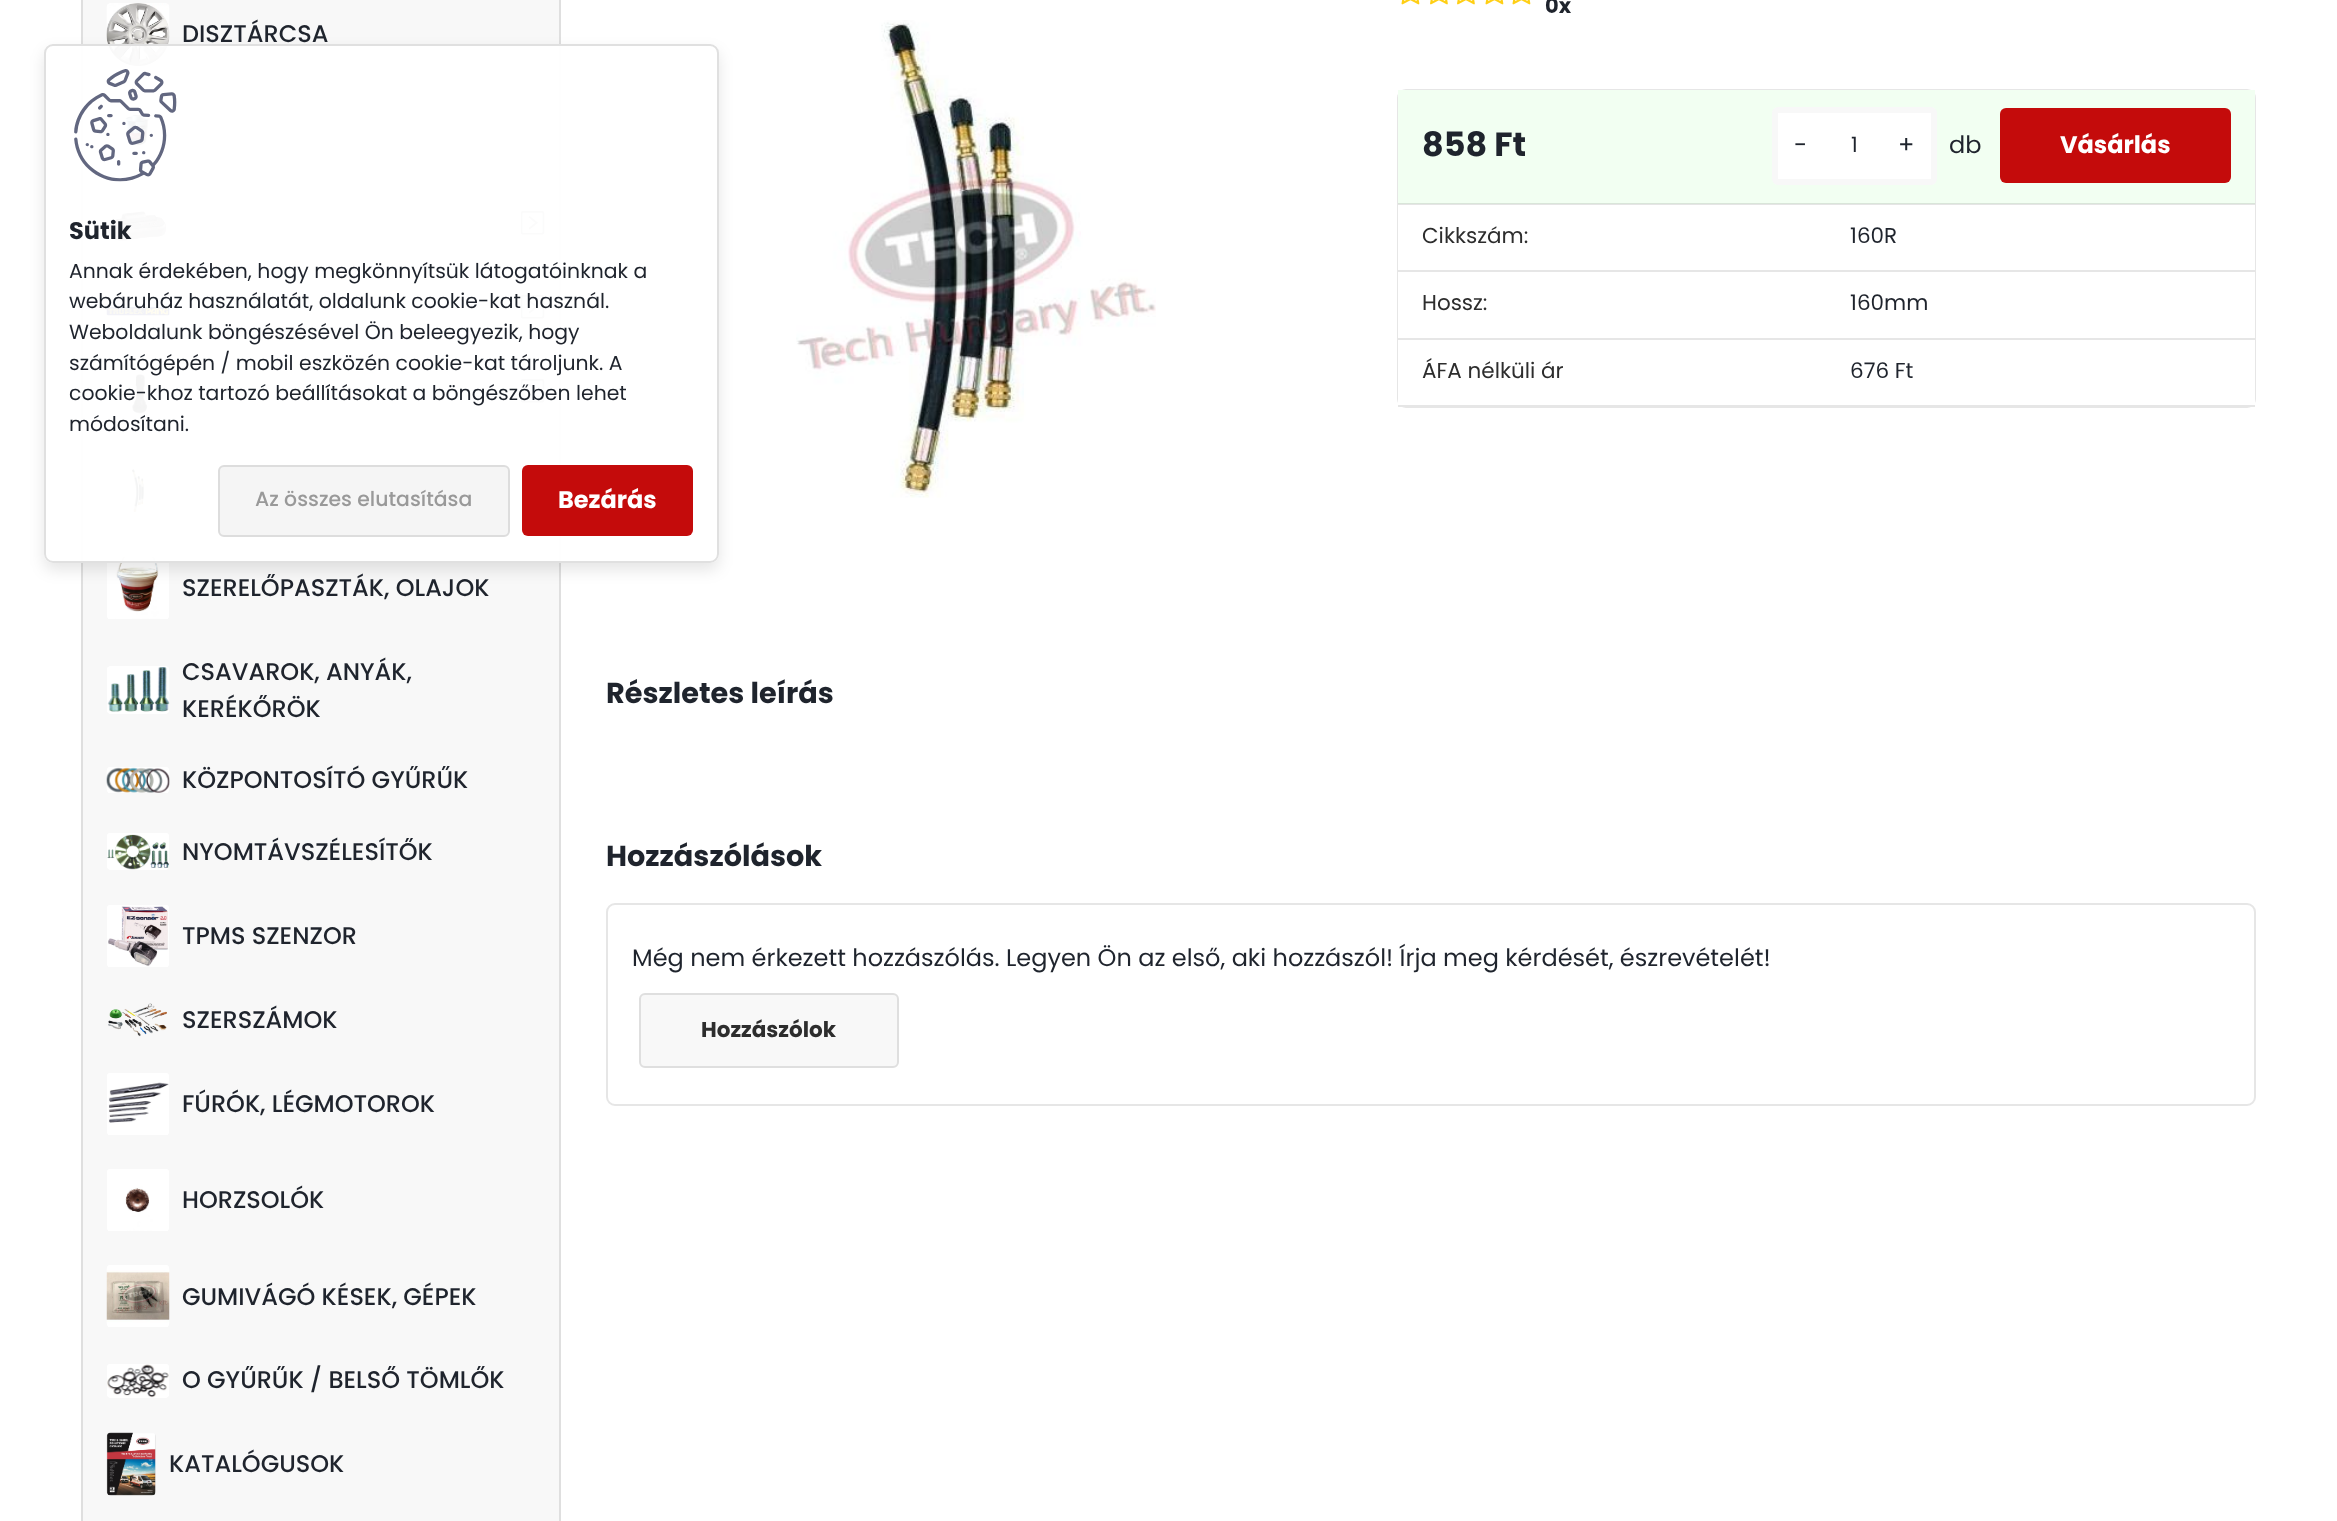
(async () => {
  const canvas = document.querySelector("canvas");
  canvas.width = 2337;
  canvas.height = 1521;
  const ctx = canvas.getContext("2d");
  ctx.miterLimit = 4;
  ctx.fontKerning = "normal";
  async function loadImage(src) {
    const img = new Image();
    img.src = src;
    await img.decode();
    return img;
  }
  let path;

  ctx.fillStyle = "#ffffff";
  ctx.fillRect(0, 0, 2337, 1521);
  ctx.fillStyle = "#f8f8f8";
  ctx.beginPath();
  ctx.rect(82, -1, 478, 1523);
  ctx.fill();
  ctx.strokeStyle = "#dfdfdf";
  ctx.lineWidth = 2;
  ctx.stroke();
  ctx.drawImage(await loadImage("img/1.png"), 106, 3, 64, 63);
  ctx.drawImage(await loadImage("img/2.png"), 107, 99, 62, 63);
  ctx.drawImage(await loadImage("img/3.png"), 107, 195, 62, 63);
  ctx.drawImage(await loadImage("img/4.png"), 521, 211, 24, 24);
  ctx.drawImage(await loadImage("img/5.png"), 106, 296, 64, 31);
  ctx.drawImage(await loadImage("img/4.png"), 521, 295, 24, 24);
  ctx.drawImage(await loadImage("img/6.png"), 107, 363, 62, 63);
  ctx.drawImage(await loadImage("img/4.png"), 521, 379, 24, 24);
  ctx.drawImage(await loadImage("img/7.png"), 107, 459, 62, 63);
  ctx.drawImage(await loadImage("img/8.png"), 107, 556, 62, 63);
  ctx.drawImage(await loadImage("img/9.png"), 107, 666, 63, 48);
  ctx.drawImage(await loadImage("img/10.png"), 106, 767, 64, 26);
  ctx.drawImage(await loadImage("img/11.png"), 107, 833, 62, 37);
  ctx.drawImage(await loadImage("img/12.png"), 107, 905, 62, 62);
  ctx.drawImage(await loadImage("img/13.png"), 108, 1003, 59, 34);
  ctx.drawImage(await loadImage("img/14.png"), 107, 1073, 62, 62);
  ctx.drawImage(await loadImage("img/15.png"), 107, 1169, 62, 62);
  ctx.drawImage(await loadImage("img/16.png"), 106, 1265, 64, 62);
  ctx.drawImage(await loadImage("img/17.png"), 107, 1364, 62, 34);
  ctx.drawImage(await loadImage("img/18.png"), 106, 1432, 50, 64);
  ctx.drawImage(await loadImage("img/19.png"), 796, 20, 360, 478);
  ctx.drawImage(await loadImage("img/20.png"), 1401, 0, 19, 5);
  ctx.drawImage(await loadImage("img/21.png"), 1430, 0, 18, 5);
  ctx.drawImage(await loadImage("img/21.png"), 1457, 0, 18, 5);
  ctx.drawImage(await loadImage("img/20.png"), 1485, 0, 19, 5);
  ctx.drawImage(await loadImage("img/20.png"), 1512, 0, 19, 5);
  ctx.beginPath();
  ctx.roundRect(1398, 90, 857, 317, 8);
  ctx.strokeStyle = "#e6e6e6";
  ctx.stroke();
  for (const [x, y, w, h, color] of [
    [1398, 204, 857, 201, "#ffffff"],
    [1398, 90, 857, 114, "#f2fff2"],
    [1398, 203, 342, 2, "rgba(0, 0, 0, 0.1)"],
    [1740, 203, 515, 2, "rgba(0, 0, 0, 0.1)"],
  ]) {
    ctx.fillStyle = color;
    ctx.fillRect(x, y, w, h);
  }
  ctx.fillStyle = "#ffffff";
  ctx.beginPath();
  ctx.roundRect(1775, 110, 159, 72, 3);
  ctx.fill();
  ctx.strokeStyle = "#f8f8f8";
  ctx.lineWidth = 6;
  ctx.stroke();
  ctx.fillStyle = "#c40b0b";
  ctx.beginPath();
  ctx.roundRect(2000, 108, 231, 75, 6);
  ctx.fill();
  for (const [x, y, w, h, color] of [
    [1398, 270, 857, 2, "#e6e6e6"],
    [1398, 338, 857, 2, "#e6e6e6"],
    [1398, 405, 857, 2, "#e6e6e6"],
  ]) {
    ctx.fillStyle = color;
    ctx.fillRect(x, y, w, h);
  }
  ctx.beginPath();
  ctx.roundRect(607, 904, 1648, 201, 8);
  ctx.strokeStyle = "#e6e6e6";
  ctx.lineWidth = 2;
  ctx.stroke();
  ctx.fillStyle = "#f8f8f8";
  ctx.beginPath();
  ctx.roundRect(640, 994, 258, 73, 5);
  ctx.fill();
  ctx.strokeStyle = "#dfdfdf";
  ctx.stroke();
  ctx.save();
  path = new Path2D("M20 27H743V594H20ZM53 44H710C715 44 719 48 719 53V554C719 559 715 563 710 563H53C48 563 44 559 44 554V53C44 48 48 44 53 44Z");
  ctx.clip(path, "evenodd");
  ctx.fillStyle = "rgba(0, 0, 0, 0.1)";
  ctx.filter = "blur(7.5px)";
  ctx.beginPath();
  ctx.roundRect(44, 51, 675, 519, 9);
  ctx.fill();
  ctx.filter = "none";
  ctx.restore();
  ctx.fillStyle = "rgba(255, 255, 255, 0.95)";
  ctx.beginPath();
  ctx.roundRect(45, 45, 673, 517, 8);
  ctx.fill();
  ctx.strokeStyle = "#e0e0e0";
  ctx.stroke();
  ctx.drawImage(await loadImage("img/22.png"), 74, 69, 103, 113);
  ctx.fillStyle = "#f5f5f5";
  ctx.beginPath();
  ctx.roundRect(219, 466, 290, 70, 5);
  ctx.fill();
  ctx.strokeStyle = "#dddddd";
  ctx.stroke();
  ctx.fillStyle = "#c40b0b";
  ctx.beginPath();
  ctx.roundRect(522, 465, 171, 71, 6);
  ctx.fill();
  ctx.font = "500 24px Poppins";
  ctx.fillStyle = "#1f242d";
  for (const [text, x, y] of [
    ["DISZTÁRCSA", 182, 42],
    ["SZERELŐPASZTÁK, OLAJOK", 182, 596],
    ["CSAVAROK, ANYÁK,", 182, 680],
    ["KERÉKŐRÖK", 182, 717],
    ["KÖZPONTOSÍTÓ GYŰRŰK", 182, 788],
    ["NYOMTÁVSZÉLESÍTŐK", 182, 860],
    ["TPMS SZENZOR", 182, 944],
    ["SZERSZÁMOK", 182, 1028],
    ["FÚRÓK, LÉGMOTOROK", 182, 1112],
    ["HORZSOLÓK", 182, 1208],
    ["GUMIVÁGÓ KÉSEK, GÉPEK", 182, 1305],
    ["O GYŰRŰK / BELSŐ TÖMLŐK", 182, 1388],
    ["KATALÓGUSOK", 169, 1472],
  ]) {
    ctx.fillText(text, x, y);
  }
  ctx.font = "bold 21px Poppins";
  ctx.fillText("0x", 1545, 13);
  ctx.font = "bold 33.5px Poppins";
  ctx.fillText("858 Ft", 1422, 156);
  ctx.font = "24px Poppins";
  ctx.fillText("-", 1794, 153);
  ctx.font = "21px Poppins";
  ctx.fillText("1", 1851, 152);
  ctx.font = "24px Poppins";
  ctx.fillText("+", 1898, 153);
  ctx.fillText("db", 1949, 153);
  ctx.font = "bold 24px Poppins";
  ctx.fillStyle = "#ffffff";
  ctx.fillText("Vásárlás", 2060, 153);
  ctx.font = "21.5px Poppins";
  ctx.fillStyle = "#2d2d2d";
  ctx.fillText("Cikkszám:", 1422, 243);
  ctx.fillStyle = "#1f242d";
  ctx.fillText("160R", 1850, 243);
  ctx.fillStyle = "#2d2d2d";
  ctx.fillText("Hossz:", 1422, 310);
  ctx.fillStyle = "#1f242d";
  ctx.fillText("160mm", 1850, 310);
  ctx.fillStyle = "#2d2d2d";
  ctx.fillText("ÁFA nélküli ár", 1422, 378);
  ctx.fillStyle = "#1f242d";
  ctx.fillText("676 Ft", 1850, 378);
  ctx.font = "bold 28.75px Poppins";
  ctx.fillText("Részletes leírás", 606, 703);
  ctx.fillText("Hozzászólások", 606, 866);
  ctx.font = "24px Poppins";
  ctx.fillText("Még nem érkezett hozzászólás. Legyen Ön az első, aki hozzászól! Írja meg kérdését, észrevételét!", 632, 966);
  ctx.font = "bold 21.5px Poppins";
  ctx.fillStyle = "#2d2d2d";
  ctx.fillText("Hozzászólok", 701, 1037);
  ctx.font = "bold 24px Poppins";
  ctx.fillStyle = "#1f242d";
  ctx.fillText("Sütik", 69, 239);
  ctx.font = "20.4px Poppins";
  for (const [text, x, y] of [
    ["Annak érdekében, hogy megkönnyítsük látogatóinknak a", 69, 278],
    ["webáruház használatát, oldalunk cookie-kat használ.", 69, 308],
    ["Weboldalunk böngészésével Ön beleegyezik, hogy", 69, 339],
    ["számítógépén / mobil eszközén cookie-kat tároljunk. A", 69, 370],
    ["cookie-khoz tartozó beállításokat a böngészőben lehet", 69, 400],
    ["módosítani.", 69, 431],
  ]) {
    ctx.fillText(text, x, y);
  }
  ctx.font = "500 20.4px Poppins";
  ctx.fillStyle = "#999999";
  ctx.fillText("Az összes elutasítása", 255, 506);
  ctx.font = "bold 24px Poppins";
  ctx.fillStyle = "#ffffff";
  ctx.fillText("Bezárás", 558, 508);
})();
